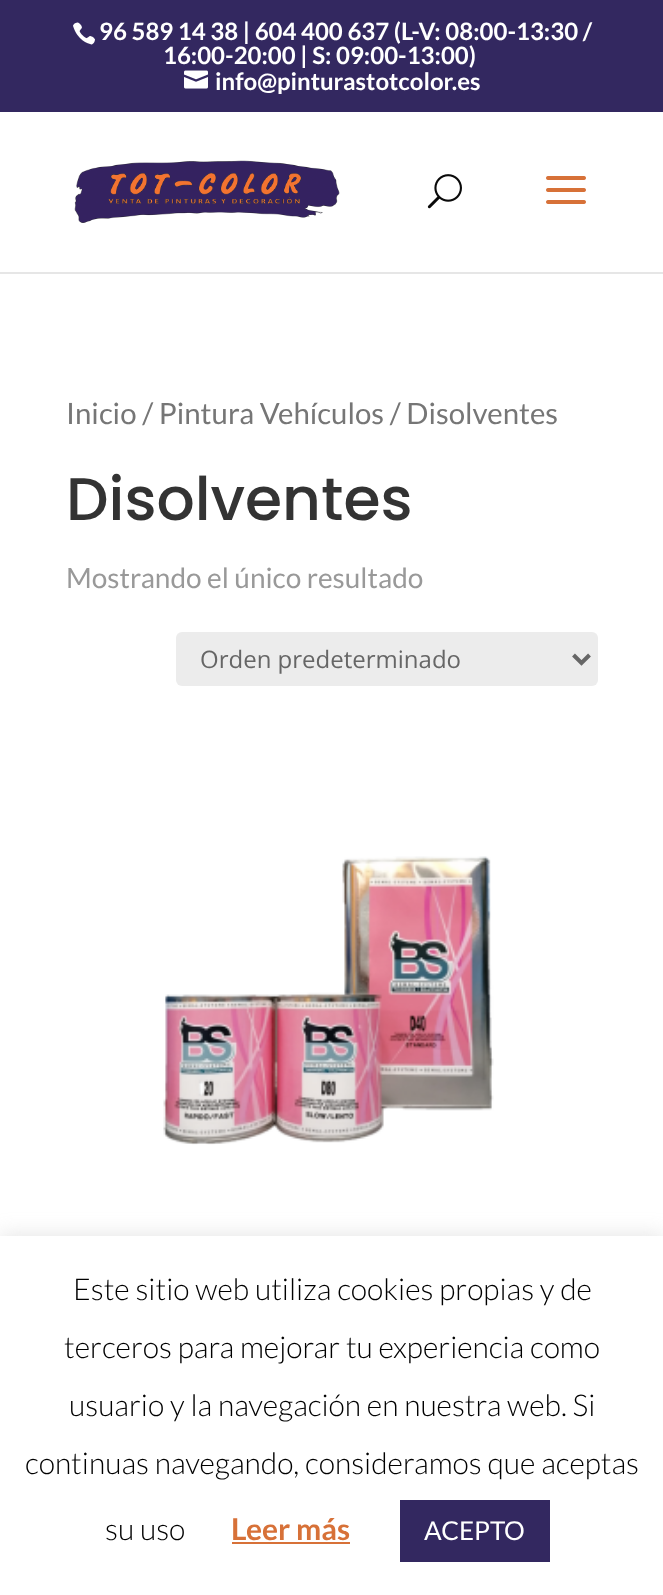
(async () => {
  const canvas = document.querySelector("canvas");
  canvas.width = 663;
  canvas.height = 1595;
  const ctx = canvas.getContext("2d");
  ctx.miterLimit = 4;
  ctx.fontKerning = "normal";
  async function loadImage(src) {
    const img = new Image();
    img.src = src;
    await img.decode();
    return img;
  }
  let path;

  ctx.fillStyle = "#ffffff";
  ctx.fillRect(0, 0, 663, 1595);
  ctx.fillStyle = "#332860";
  ctx.fillRect(0, 0, 663, 112);
  ctx.drawImage(await loadImage("img/1.png"), 73, 22, 22, 23);
  ctx.drawImage(await loadImage("img/2.png"), 184, 70, 24, 19);
  ctx.fillStyle = "#e6e6e6";
  ctx.fillRect(0, 272, 663, 2);
  ctx.drawImage(await loadImage("img/3.png"), 74, 160, 266, 63);
  ctx.drawImage(await loadImage("img/4.png"), 427, 174, 35, 35);
  ctx.drawImage(await loadImage("img/5.png"), 546, 176, 40, 28);
  ctx.fillStyle = "#ececec";
  ctx.beginPath();
  ctx.roundRect(176, 632, 422, 54, 6);
  ctx.fill();
  path = new Path2D("M573.5 655L581.5 663L589.5 655");
  ctx.strokeStyle = "#666666";
  ctx.lineWidth = 4;
  ctx.stroke(path);
  ctx.drawImage(await loadImage("img/6.png"), 163, 856, 331, 289);
  ctx.fillStyle = "rgba(172, 171, 171, 0.3)";
  ctx.filter = "blur(10px)";
  ctx.beginPath();
  ctx.rect(0, 1234, 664, 360);
  ctx.fill();
  ctx.filter = "none";
  for (const [x, y, w, h, color] of [
    [0, 1236, 663, 359, "#ffffff"],
    [232, 1542, 118, 2, "#d77138"],
    [400, 1500, 150, 62, "#332860"],
  ]) {
    ctx.fillStyle = color;
    ctx.fillRect(x, y, w, h);
  }
  ctx.font = "bold 24px Lato";
  ctx.fillStyle = "#ffffff";
  for (const [text, x, y] of [
    ["96 589 14 38 | 604 400 637 (L-V: 08:00-13:30 /", 99, 40],
    ["16:00-20:00 | S: 09:00-13:00)", 163, 64],
    ["info@pinturastotcolor.es", 215, 90],
  ]) {
    ctx.fillText(text, x, y);
  }
  ctx.font = "29.4px Lato";
  ctx.fillStyle = "#767676";
  ctx.fillText("Inicio / Pintura Vehículos / Disolventes", 66, 424);
  ctx.font = "500 60px Poppins";
  ctx.fillStyle = "#333333";
  ctx.fillText("Disolventes", 66, 520);
  ctx.font = "28px Lato";
  ctx.fillStyle = "#999999";
  ctx.fillText("Mostrando el único resultado", 66, 588);
  ctx.font = "24px Open Sans";
  ctx.fillStyle = "#666666";
  ctx.fillText("Orden predeterminado", 200, 668);
  ctx.font = "300 30px Lato";
  ctx.fillStyle = "#000000";
  for (const [text, x, y] of [
    ["Este sitio web utiliza cookies propias y de", 73, 1300],
    ["terceros para mejorar tu experiencia como", 64, 1358],
    ["usuario y la navegación en nuestra web. Si", 69, 1416],
    ["continuas navegando, consideramos que aceptas", 25, 1474],
    ["su uso", 105, 1540],
  ]) {
    ctx.fillText(text, x, y);
  }
  ctx.font = "bold 30px Lato";
  ctx.fillStyle = "#d77138";
  ctx.fillText("Leer más", 231, 1540);
  ctx.font = "26px Lato";
  ctx.fillStyle = "#ffffff";
  ctx.fillText("ACEPTO", 424, 1540);
})();
